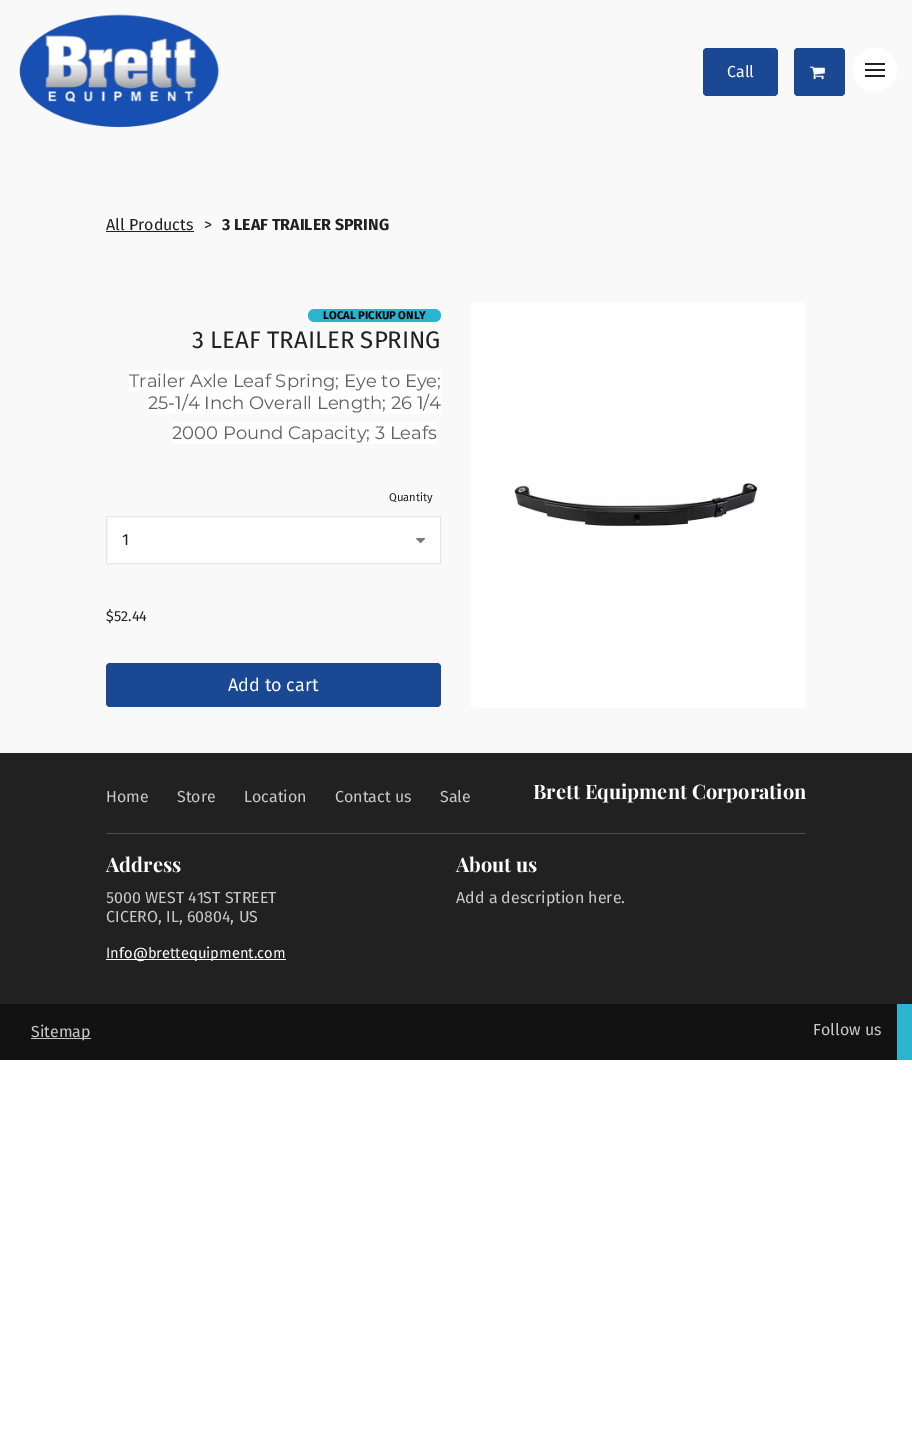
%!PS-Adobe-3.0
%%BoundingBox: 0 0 912 1432
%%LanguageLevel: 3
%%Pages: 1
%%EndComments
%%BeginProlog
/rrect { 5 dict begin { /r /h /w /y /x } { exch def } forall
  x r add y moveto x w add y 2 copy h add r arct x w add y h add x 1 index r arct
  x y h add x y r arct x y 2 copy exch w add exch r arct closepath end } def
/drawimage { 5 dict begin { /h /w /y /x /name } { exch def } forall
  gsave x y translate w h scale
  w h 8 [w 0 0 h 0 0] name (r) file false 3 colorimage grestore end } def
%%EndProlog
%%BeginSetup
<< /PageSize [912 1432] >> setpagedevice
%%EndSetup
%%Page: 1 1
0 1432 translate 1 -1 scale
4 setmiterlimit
1 setgray
0 0 912 1432 rectfill
0.976 setgray
0 0 912 753 rectfill
(images/1.raw) 19 14 201 114 drawimage
0.102 0.282 0.576 setrgbcolor
703 48 75 48 4 rrect fill
794 48 51 48 4 rrect fill
(images/2.raw) 810 66 15 14 drawimage
1 setgray
newpath 875 70 22 0 360 arc closepath fill
0.129 setgray
865 63 20 2 rectfill
865 69 20 2 rectfill
865 75 20 2 rectfill
106 231 88 1 rectfill
0.161 0.706 0.812 setrgbcolor
308 309 133 13 6.5 rrect fill
1 setgray
129 370 312 22 rectfill
148 392 293 22 rectfill
172 422 265 22 rectfill
newpath 106.5 516.5 moveto 440.5 516.5 lineto 440.5 563.5 lineto 106.5 563.5 lineto closepath gsave fill grestore
0.902 setgray
stroke
(images/3.raw) 416 538 10 6 drawimage
0.102 0.282 0.576 setrgbcolor
106 663 335 44 4 rrect fill
1 setgray
471 302 335 406 4 rrect fill
(images/4.raw) 514 483 244 44 drawimage
0.129 setgray
0 753 912 251 rectfill
0.302 setgray
106 833 700 1 rectfill
1 setgray
106 959 180 1 rectfill
0.071 setgray
0 1004 897 56 rectfill
0.769 setgray
31 1038 60 1 rectfill
0.161 0.706 0.812 setrgbcolor
897 1004 15 56 rectfill
/FiraSans-Regular [16 0 0 -16 0 0] selectfont
1 setgray
727 77 moveto (Call) show
0.129 setgray
106 230 moveto (All Products) show
204 230 moveto (>) show
/FiraSans-Bold [16 0 0 -16 0 0] selectfont
222 230 moveto (3 LEAF TRAILER SPRING) show
/FiraSans-Bold [11.25 0 0 -11.25 0 0] selectfont
0 setgray
323 319 moveto (LOCAL PICKUP ONLY) show
/FiraSans-Regular [24 0 0 -24 0 0] selectfont
0.129 setgray
192 348 moveto (3 LEAF TRAILER SPRING) show
/Montserrat-Regular [18 0 0 -18 0 0] selectfont
0.38 setgray
129 387 moveto (Trailer Axle Leaf Spring; Eye to Eye;) show
148 409 moveto (25-1/4 Inch Overall Length; 26 1/4) show
172 439 moveto (2000 Pound Capacity; 3 Leafs) show
/FiraSans-Regular [11.25 0 0 -11.25 0 0] selectfont
0.129 setgray
389 501 moveto (Quantity) show
/FiraSans-Regular [16 0 0 -16 0 0] selectfont
122 545 moveto (1) show
/FiraSans-Regular [14.5 0 0 -14.5 0 0] selectfont
106 621 moveto ($52.44) show
/FiraSans-Regular [18 0 0 -18 0 0] selectfont
1 setgray
228 691 moveto (Add to cart) show
/FiraSans-Regular [16 0 0 -16 0 0] selectfont
0.784 setgray
106 802 moveto (Home) show
177 802 moveto (Store) show
244 802 moveto (Location) show
335 802 moveto (Contact us) show
440 802 moveto (Sale) show
/PlayfairDisplay-Bold [20 0 0 -20 0 0] selectfont
1 setgray
533 799 moveto (Brett Equipment Corporation) show
106 872 moveto (Address) show
/FiraSans-Regular [16 0 0 -16 0 0] selectfont
0.784 setgray
106 903 moveto (5000 WEST 41ST STREET) show
106 922 moveto (CICERO, IL, 60804, US) show
/FiraSans-Regular [14.75 0 0 -14.75 0 0] selectfont
1 setgray
106 958 moveto (Info@brettequipment.com) show
/PlayfairDisplay-Bold [20 0 0 -20 0 0] selectfont
456 872 moveto (About us) show
/FiraSans-Regular [16 0 0 -16 0 0] selectfont
0.784 setgray
456 903 moveto (Add a description here.) show
31 1037 moveto (Sitemap) show
813 1035 moveto (Follow us) show
showpage
%%EOF
